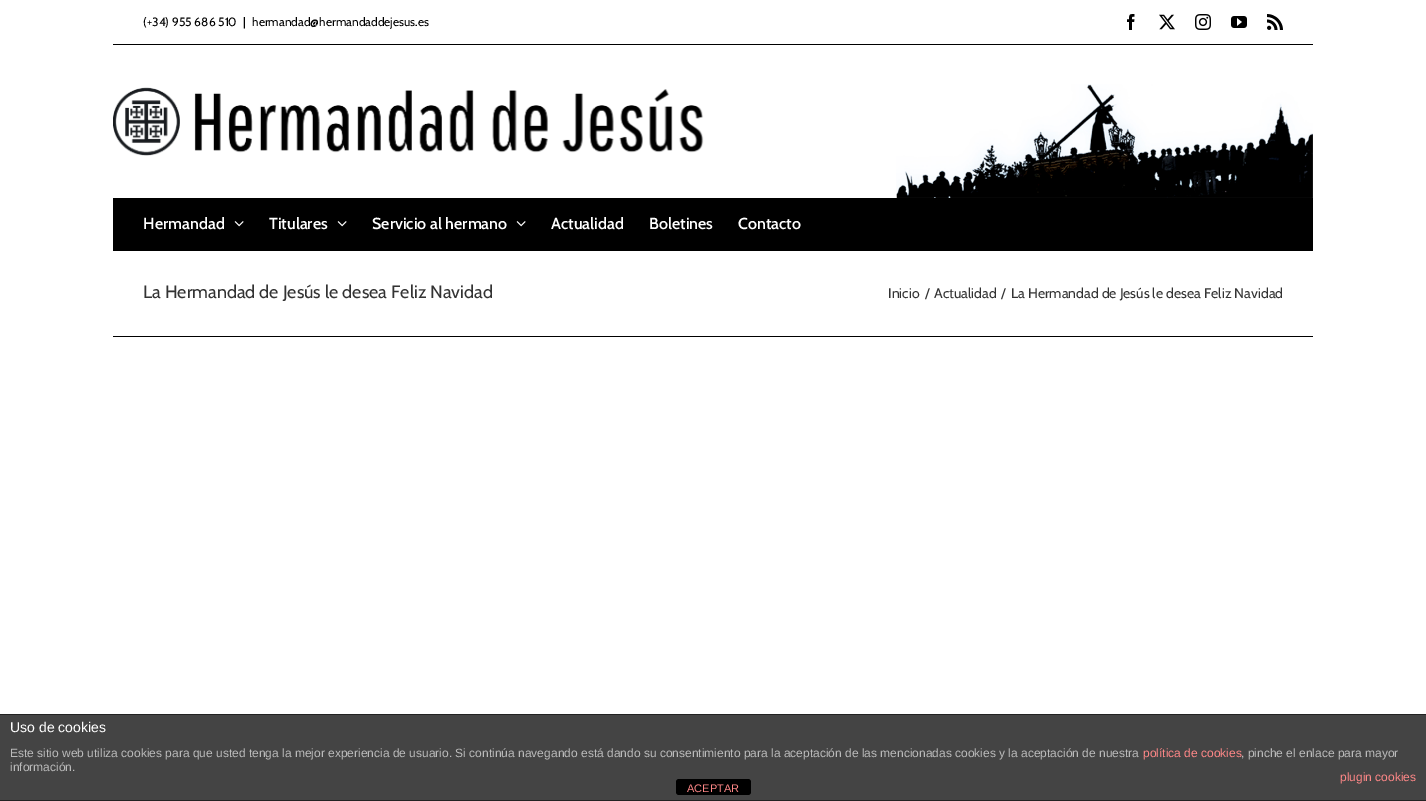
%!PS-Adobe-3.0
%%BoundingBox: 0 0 1426 801
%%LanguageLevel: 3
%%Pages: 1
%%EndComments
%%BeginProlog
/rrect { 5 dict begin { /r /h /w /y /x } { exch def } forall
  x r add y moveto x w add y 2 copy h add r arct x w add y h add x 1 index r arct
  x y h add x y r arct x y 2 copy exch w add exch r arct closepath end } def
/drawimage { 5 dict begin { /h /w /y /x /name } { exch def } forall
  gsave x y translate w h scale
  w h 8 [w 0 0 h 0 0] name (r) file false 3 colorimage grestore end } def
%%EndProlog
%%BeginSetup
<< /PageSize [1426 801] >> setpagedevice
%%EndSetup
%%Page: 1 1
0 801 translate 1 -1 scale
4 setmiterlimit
1 setgray
0 0 1426 801 rectfill
0 setgray
113 44 1200 1 rectfill
(images/1.raw) 1127 14 8 16 drawimage
(images/2.raw) 1159 14 16 16 drawimage
(images/3.raw) 1195 14 16 16 drawimage
(images/4.raw) 1231 16 16 12 drawimage
(images/5.raw) 1267 14 16 16 drawimage
(images/6.raw) 896 84 417 114 drawimage
(images/7.raw) 113 87 591 69 drawimage
113 198 1200 53 rectfill
(images/8.raw) 234 221 10 6 drawimage
(images/8.raw) 337 221 10 6 drawimage
(images/8.raw) 516 221 10 6 drawimage
113 336 1200 1 rectfill
0.267 setgray
0 715 1426 85 rectfill
0.133 setgray
0 714 1426 1 rectfill
0 800 1426 1 rectfill
0 setgray
676 779 75 16 3 rrect fill
/Cabin-Regular [12 0 0 -12 0 0] selectfont
143 26 moveto (\(+34\) 955 686 510) show
243 26 moveto (|) show
252 26 moveto (hermandad@hermandaddejesus.es) show
/Cabin-SemiBold [16 0 0 -16 0 0] selectfont
1 setgray
143 229 moveto (Hermandad) show
269 229 moveto (Titulares) show
372 229 moveto (Servicio al hermano) show
551 229 moveto (Actualidad) show
649 229 moveto (Boletines) show
738 229 moveto (Contacto) show
/Cabin-Regular [18 0 0 -18 0 0] selectfont
0.2 setgray
143 298 moveto (La Hermandad de Jesús le desea Feliz Navidad) show
/Cabin-Regular [14 0 0 -14 0 0] selectfont
888 298 moveto (Inicio) show
925 298 moveto (/) show
934 298 moveto (Actualidad) show
1001 298 moveto (/) show
1011 298 moveto (La Hermandad de Jesús le desea Feliz Navidad) show
/LiberationSans-Regular [14 0 0 -14 0 0] selectfont
1 setgray
10 732 moveto (Uso de cookies) show
/LiberationSans-Regular [12 0 0 -12 0 0] selectfont
0.733 setgray
10 757 moveto (Este sitio web utiliza cookies para que usted tenga la mejor experiencia de usuario. Si continúa navegando está dando su consentimiento para la aceptación de las mencionadas cookies y la aceptación de nuestra) show
1 0.533 0.533 setrgbcolor
1143 757 moveto (política de cookies) show
0.733 setgray
1241 757 moveto (, pinche el enlace para mayor) show
10 771 moveto (información.) show
1 0.533 0.533 setrgbcolor
1340 781 moveto (plugin cookies) show
/LiberationSans-Regular [11 0 0 -11 0 0] selectfont
687 792 moveto (ACEPTAR) show
showpage
%%EOF
